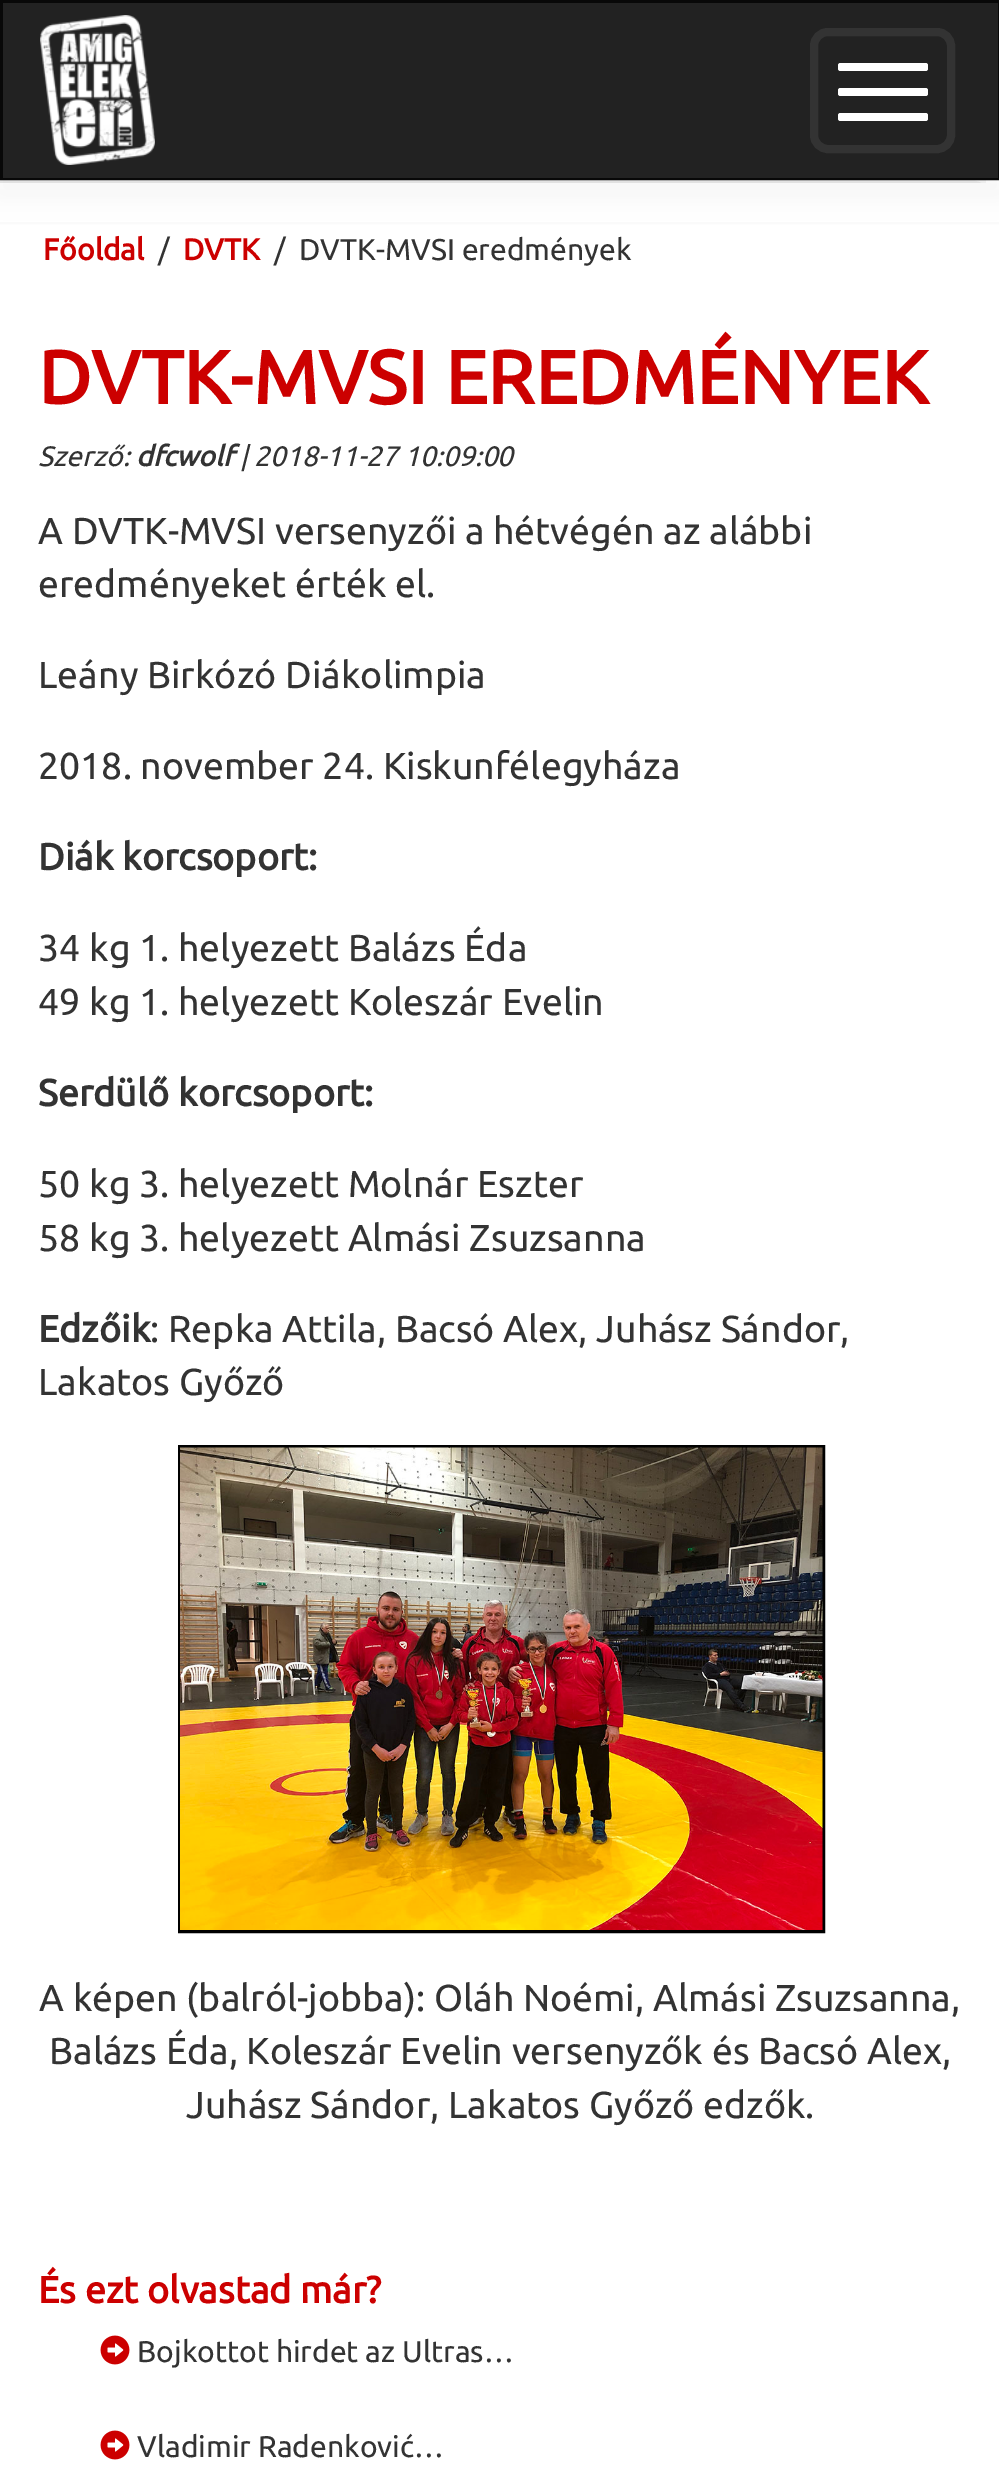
%!PS-Adobe-3.0
%%BoundingBox: 0 0 999 2474
%%LanguageLevel: 3
%%Pages: 1
%%EndComments
%%BeginProlog
/setalpha { dup .setfillconstantalpha .setstrokeconstantalpha } def
/rrect { 5 dict begin { /r /h /w /y /x } { exch def } forall
  x r add y moveto x w add y 2 copy h add r arct x w add y h add x 1 index r arct
  x y h add x y r arct x y 2 copy exch w add exch r arct closepath end } def
/softshadow { 12 dict begin { /a /b /q /h /w /y /x } { exch def } forall gsave /was 0 def
  9 -2 -9 { dup b mul 4 div /e exch def 1 sub .425 mul 2.718 exch exp 1 add a .99 .min exch div /now exch def
    1 1 now sub 1 was sub div sub setalpha /was now def
    w h .min e 2 mul add 0 gt { x e sub y e sub w e 2 mul add h e 2 mul add
      q e add b .6 mul add w h .min 2 div e add .min 0 .max rrect fill } if } for grestore end } def
/drawimage { 5 dict begin { /h /w /y /x /name } { exch def } forall
  gsave x y translate w h scale
  w h 8 [w 0 0 h 0 0] name (r) file false 3 colorimage grestore end } def
%%EndProlog
%%BeginSetup
<< /PageSize [999 2474] /PageUsesTransparency true >> setpagedevice
%%EndSetup
%%Page: 1 1
0 .pushpdf14devicefilter
0 2474 translate 1 -1 scale
4 setmiterlimit
1 setgray
0 0 999 2474 rectfill
0.196 setgray
0 13 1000 180 0 12.5 0.75 softshadow
gsave
newpath 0 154 moveto 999 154 lineto 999 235 lineto 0 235 lineto closepath 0 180 moveto 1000 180 lineto 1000 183 lineto 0 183 lineto closepath eoclip newpath
0 193 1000 3 0 12.5 0.75 softshadow
grestore
0.95 setalpha
1 setgray
0 180 999 3 rectfill
gsave
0 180 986 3 rectclip
1 setalpha
0.196 setgray
-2 193 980 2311 0 10 0.75 softshadow
grestore
1 setalpha
0.031 setgray
3 setlinewidth
1.5 1.5 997 177 rectstroke
0.133 setgray
3 3 995 175 rectfill
(images/1.raw) 40 15 115 150 drawimage
0.2 setgray
8 setlinewidth
814 32 137 117 14 rrect stroke
1 setgray
838 63 90 8 2.5 rrect fill
838 88 90 8 2.5 rrect fill
838 113 90 8 2.5 rrect fill
0.95 setalpha
0 183 999 39 rectfill
1 setalpha
0 setgray
3 setlinewidth
179.5 1446.5 644 485 rectstroke
(images/2.raw) 180 1447 643 483 drawimage
(images/3.raw) 100 2335 30 30 drawimage
(images/3.raw) 100 2430 30 30 drawimage
/Ubuntu-Bold [30 0 0 -30 0 0] selectfont
0.8 0 0 setrgbcolor
43 260 moveto (Főoldal) show
/Ubuntu-Regular [30 0 0 -30 0 0] selectfont
0.2 setgray
158 260 moveto (/) show
/Ubuntu-Bold [30 0 0 -30 0 0] selectfont
0.8 0 0 setrgbcolor
183 260 moveto (DVTK) show
/Ubuntu-Regular [30 0 0 -30 0 0] selectfont
0.2 setgray
274 260 moveto (/) show
299 260 moveto (DVTK-MVSI eredmények) show
/Ubuntu-Bold [75 0 0 -75 0 0] selectfont
0.8 0 0 setrgbcolor
38 404 moveto (DVTK-MVSI EREDMÉNYEK) show
/Ubuntu-Italic [28.1 0 0 -28.1 0 0] selectfont
0.2 setgray
38 466 moveto (Szerző:) show
/Ubuntu-BoldItalic [28.1 0 0 -28.1 0 0] selectfont
136 466 moveto (dfcwolf) show
/Ubuntu-Italic [28.1 0 0 -28.1 0 0] selectfont
240 466 moveto (| 2018-11-27 10:09:00) show
/Ubuntu-Regular [37.5 0 0 -37.5 0 0] selectfont
38 544 moveto (A DVTK-MVSI versenyzői a hétvégén az alábbi) show
38 597 moveto (eredményeket érték el.) show
38 688 moveto (Leány Birkózó Diákolimpia) show
38 779 moveto (2018. november 24. Kiskunfélegyháza) show
/Ubuntu-Bold [37.5 0 0 -37.5 0 0] selectfont
38 870 moveto (Diák korcsoport:) show
/Ubuntu-Regular [37.5 0 0 -37.5 0 0] selectfont
38 961 moveto (34 kg 1. helyezett Balázs Éda) show
38 1015 moveto (49 kg 1. helyezett Koleszár Evelin) show
/Ubuntu-Bold [37.5 0 0 -37.5 0 0] selectfont
38 1106 moveto (Serdülő korcsoport:) show
/Ubuntu-Regular [37.5 0 0 -37.5 0 0] selectfont
38 1197 moveto (50 kg 3. helyezett Molnár Eszter) show
38 1251 moveto (58 kg 3. helyezett Almási Zsuzsanna) show
/Ubuntu-Bold [37.5 0 0 -37.5 0 0] selectfont
38 1342 moveto (Edzőik) show
/Ubuntu-Regular [37.5 0 0 -37.5 0 0] selectfont
150 1342 moveto (: Repka Attila, Bacsó Alex, Juhász Sándor,) show
38 1395 moveto (Lakatos Győző) show
39 2011 moveto (A képen \(balról-jobba\): Oláh Noémi, Almási Zsuzsanna,) show
49 2064 moveto (Balázs Éda, Koleszár Evelin versenyzők és Bacsó Alex,) show
186 2118 moveto (Juhász Sándor, Lakatos Győző edzők.) show
/Ubuntu-Bold [37.5 0 0 -37.5 0 0] selectfont
0.8 0 0 setrgbcolor
38 2303 moveto (És ezt olvastad már?) show
/Ubuntu-Regular [30 0 0 -30 0 0] selectfont
0.2 setgray
137 2362 moveto (Bojkottot hirdet az Ultras…) show
137 2457 moveto (Vladimir Radenković…) show
.poppdf14devicefilter showpage
%%EOF
